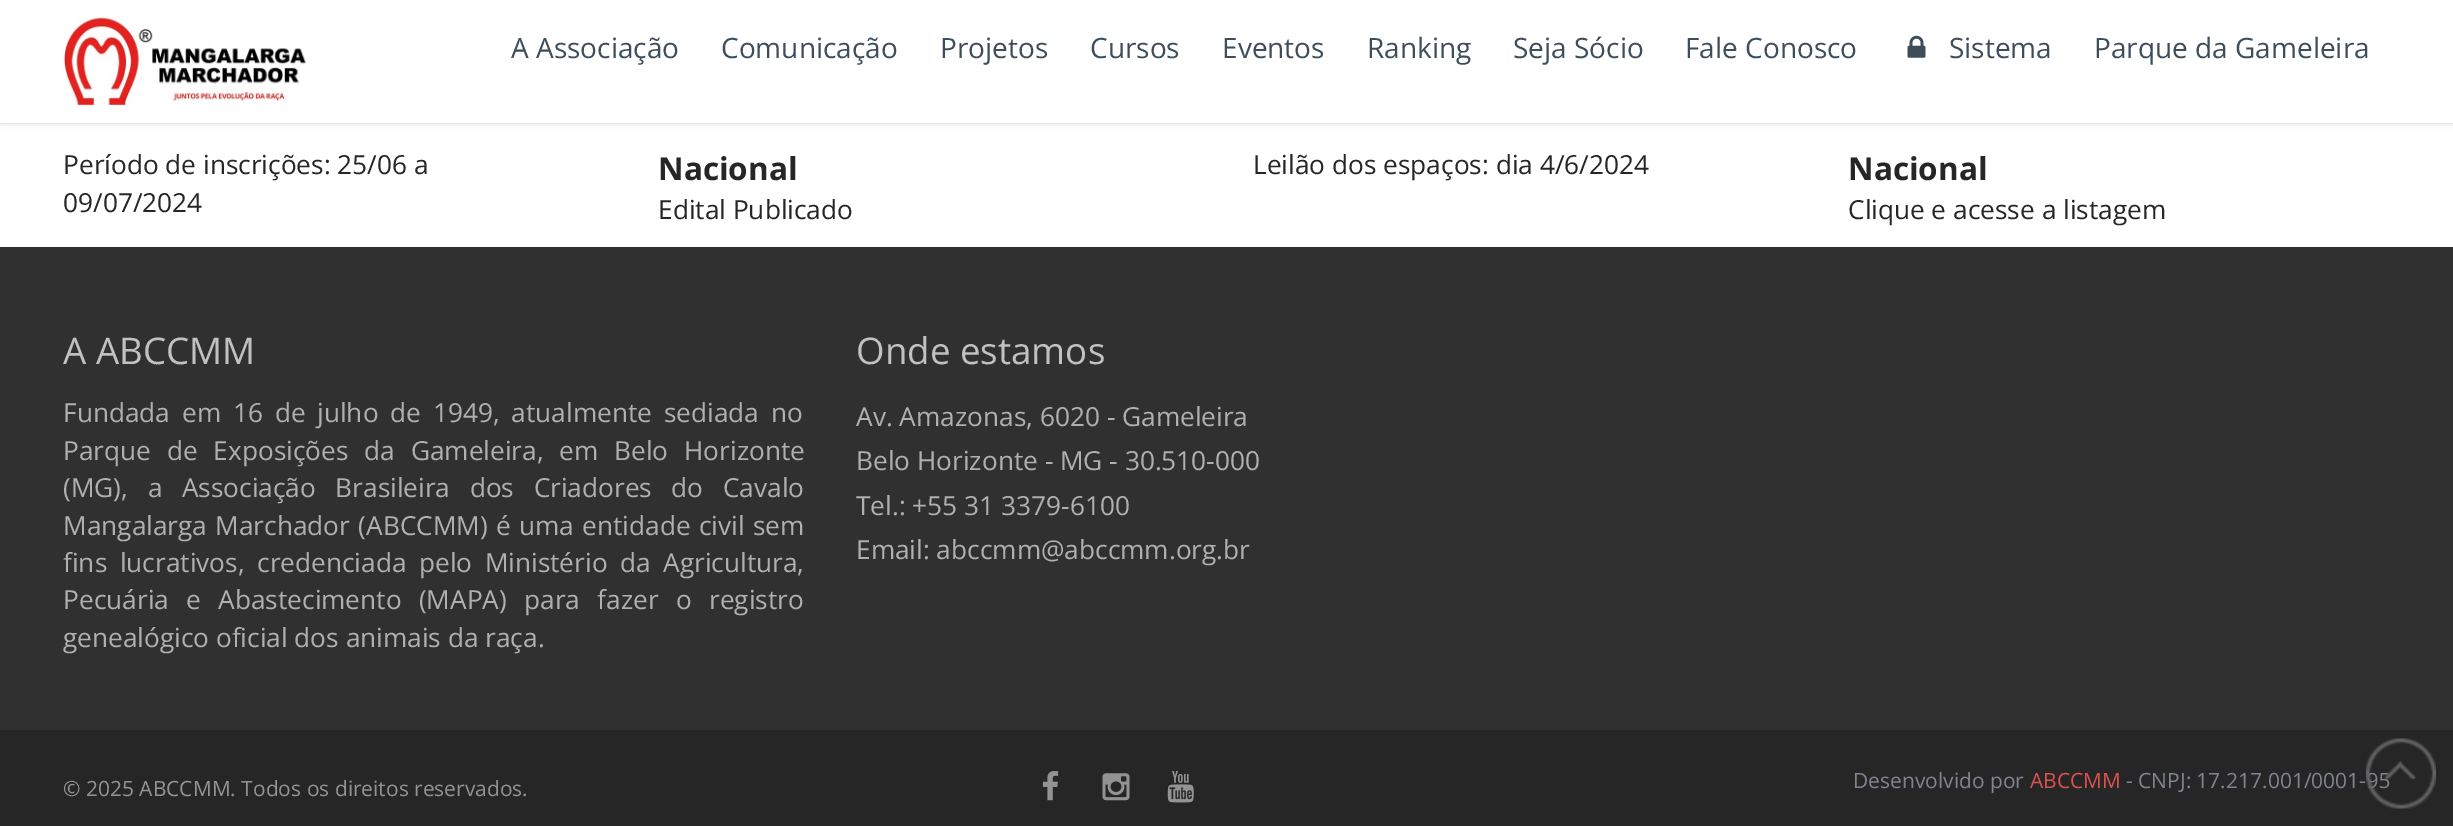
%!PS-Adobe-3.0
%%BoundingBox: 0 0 2453 826
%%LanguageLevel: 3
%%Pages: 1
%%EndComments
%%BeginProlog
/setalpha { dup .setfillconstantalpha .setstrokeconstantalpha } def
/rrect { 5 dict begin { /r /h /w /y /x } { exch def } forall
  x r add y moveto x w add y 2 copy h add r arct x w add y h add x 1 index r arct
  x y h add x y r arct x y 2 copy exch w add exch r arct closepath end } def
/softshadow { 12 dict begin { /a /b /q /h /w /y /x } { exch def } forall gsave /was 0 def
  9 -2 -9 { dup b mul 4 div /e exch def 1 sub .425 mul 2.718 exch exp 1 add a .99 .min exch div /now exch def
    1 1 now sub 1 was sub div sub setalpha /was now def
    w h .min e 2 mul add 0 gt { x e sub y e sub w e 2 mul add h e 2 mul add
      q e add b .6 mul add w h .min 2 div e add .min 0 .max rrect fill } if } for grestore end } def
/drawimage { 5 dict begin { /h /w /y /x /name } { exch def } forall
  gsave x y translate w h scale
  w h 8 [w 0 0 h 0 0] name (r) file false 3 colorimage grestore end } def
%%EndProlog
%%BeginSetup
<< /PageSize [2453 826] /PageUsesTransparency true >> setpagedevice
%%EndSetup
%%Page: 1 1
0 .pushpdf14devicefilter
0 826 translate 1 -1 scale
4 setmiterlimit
1 setgray
0 0 2453 826 rectfill
0.867 setgray
0 2 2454 122 0 2.5 1 softshadow
1 setgray
0 0 2453 123 rectfill
(images/1.raw) 63 17 243 88 drawimage
(images/2.raw) 1907 35 19 23 drawimage
0.192 0.188 0.188 setrgbcolor
0 247 2453 483 rectfill
0.153 0.149 0.149 setrgbcolor
0 730 2453 96 rectfill
(images/3.raw) 1042 771 17 30 drawimage
(images/4.raw) 1102 773 28 28 drawimage
(images/5.raw) 1167 771 27 32 drawimage
/OpenSans-Regular [28 0 0 -28 0 0] selectfont
0.243 0.302 0.361 setrgbcolor
511 58 moveto (A Associação) show
721 58 moveto (Comunicação) show
940 58 moveto (Projetos) show
1090 58 moveto (Cursos) show
1222 58 moveto (Eventos) show
1367 58 moveto (Ranking) show
1513 58 moveto (Seja Sócio) show
1685 58 moveto (Fale Conosco) show
1949 58 moveto (Sistema) show
2094 58 moveto (Parque da Gameleira) show
/OpenSans-Regular [26.25 0 0 -26.25 0 0] selectfont
0.149 setgray
63 174 moveto (Período de inscrições: 25/06 a) show
63 212 moveto (09/07/2024) show
/OpenSans-Bold [31.5 0 0 -31.5 0 0] selectfont
658 180 moveto (Nacional) show
/OpenSans-Regular [26.25 0 0 -26.25 0 0] selectfont
658 219 moveto (Edital Publicado) show
1253 174 moveto (Leilão dos espaços: dia 4/6/2024) show
/OpenSans-Bold [31.5 0 0 -31.5 0 0] selectfont
1848 180 moveto (Nacional) show
/OpenSans-Regular [26.25 0 0 -26.25 0 0] selectfont
1848 219 moveto (Clique e acesse a listagem) show
/OpenSans-Regular [36.75 0 0 -36.75 0 0] selectfont
0.761 0.757 0.757 setrgbcolor
63 364 moveto (A ABCCMM) show
/OpenSans-Regular [26.25 0 0 -26.25 0 0] selectfont
0.69 setgray
63 422 moveto 5 0 32 (Fundada em 16 de julho de 1949, atualmente sediada no) widthshow
63 460 moveto 9 0 32 (Parque de Exposições da Gameleira, em Belo Horizonte) widthshow
63 497 moveto 12.75 0 32 (\(MG\), a Associação Brasileira dos Criadores do Cavalo) widthshow
63 535 moveto 1.5 0 32 (Mangalarga Marchador \(ABCCMM\) é uma entidade civil sem) widthshow
63 572 moveto 5.75 0 32 (fins lucrativos, credenciada pelo Ministério da Agricultura,) widthshow
63 609 moveto 10.5 0 32 (Pecuária e Abastecimento \(MAPA\) para fazer o registro) widthshow
63 647 moveto (genealógico oficial dos animais da raça.) show
/OpenSans-Regular [36.75 0 0 -36.75 0 0] selectfont
0.761 0.757 0.757 setrgbcolor
856 364 moveto (Onde estamos) show
/OpenSans-Regular [26.25 0 0 -26.25 0 0] selectfont
0.69 setgray
856 426 moveto (Av. Amazonas, 6020 - Gameleira) show
856 470 moveto (Belo Horizonte - MG - 30.510-000) show
856 515 moveto (Tel.: +55 31 3379-6100) show
856 559 moveto (Email: abccmm@abccmm.org.br) show
/OpenSans-Regular [21 0 0 -21 0 0] selectfont
0.576 setgray
63 796 moveto (© 2025 ABCCMM. Todos os direitos reservados.) show
0.506 0.518 0.561 setrgbcolor
1853 788 moveto (Desenvolvido por) show
0.851 0.322 0.306 setrgbcolor
2030 788 moveto (ABCCMM) show
0.506 0.518 0.561 setrgbcolor
2126 788 moveto (- CNPJ: 17.217.001/0001-95) show
(images/6.raw) 2366 738 70 71 drawimage
.poppdf14devicefilter showpage
%%EOF
